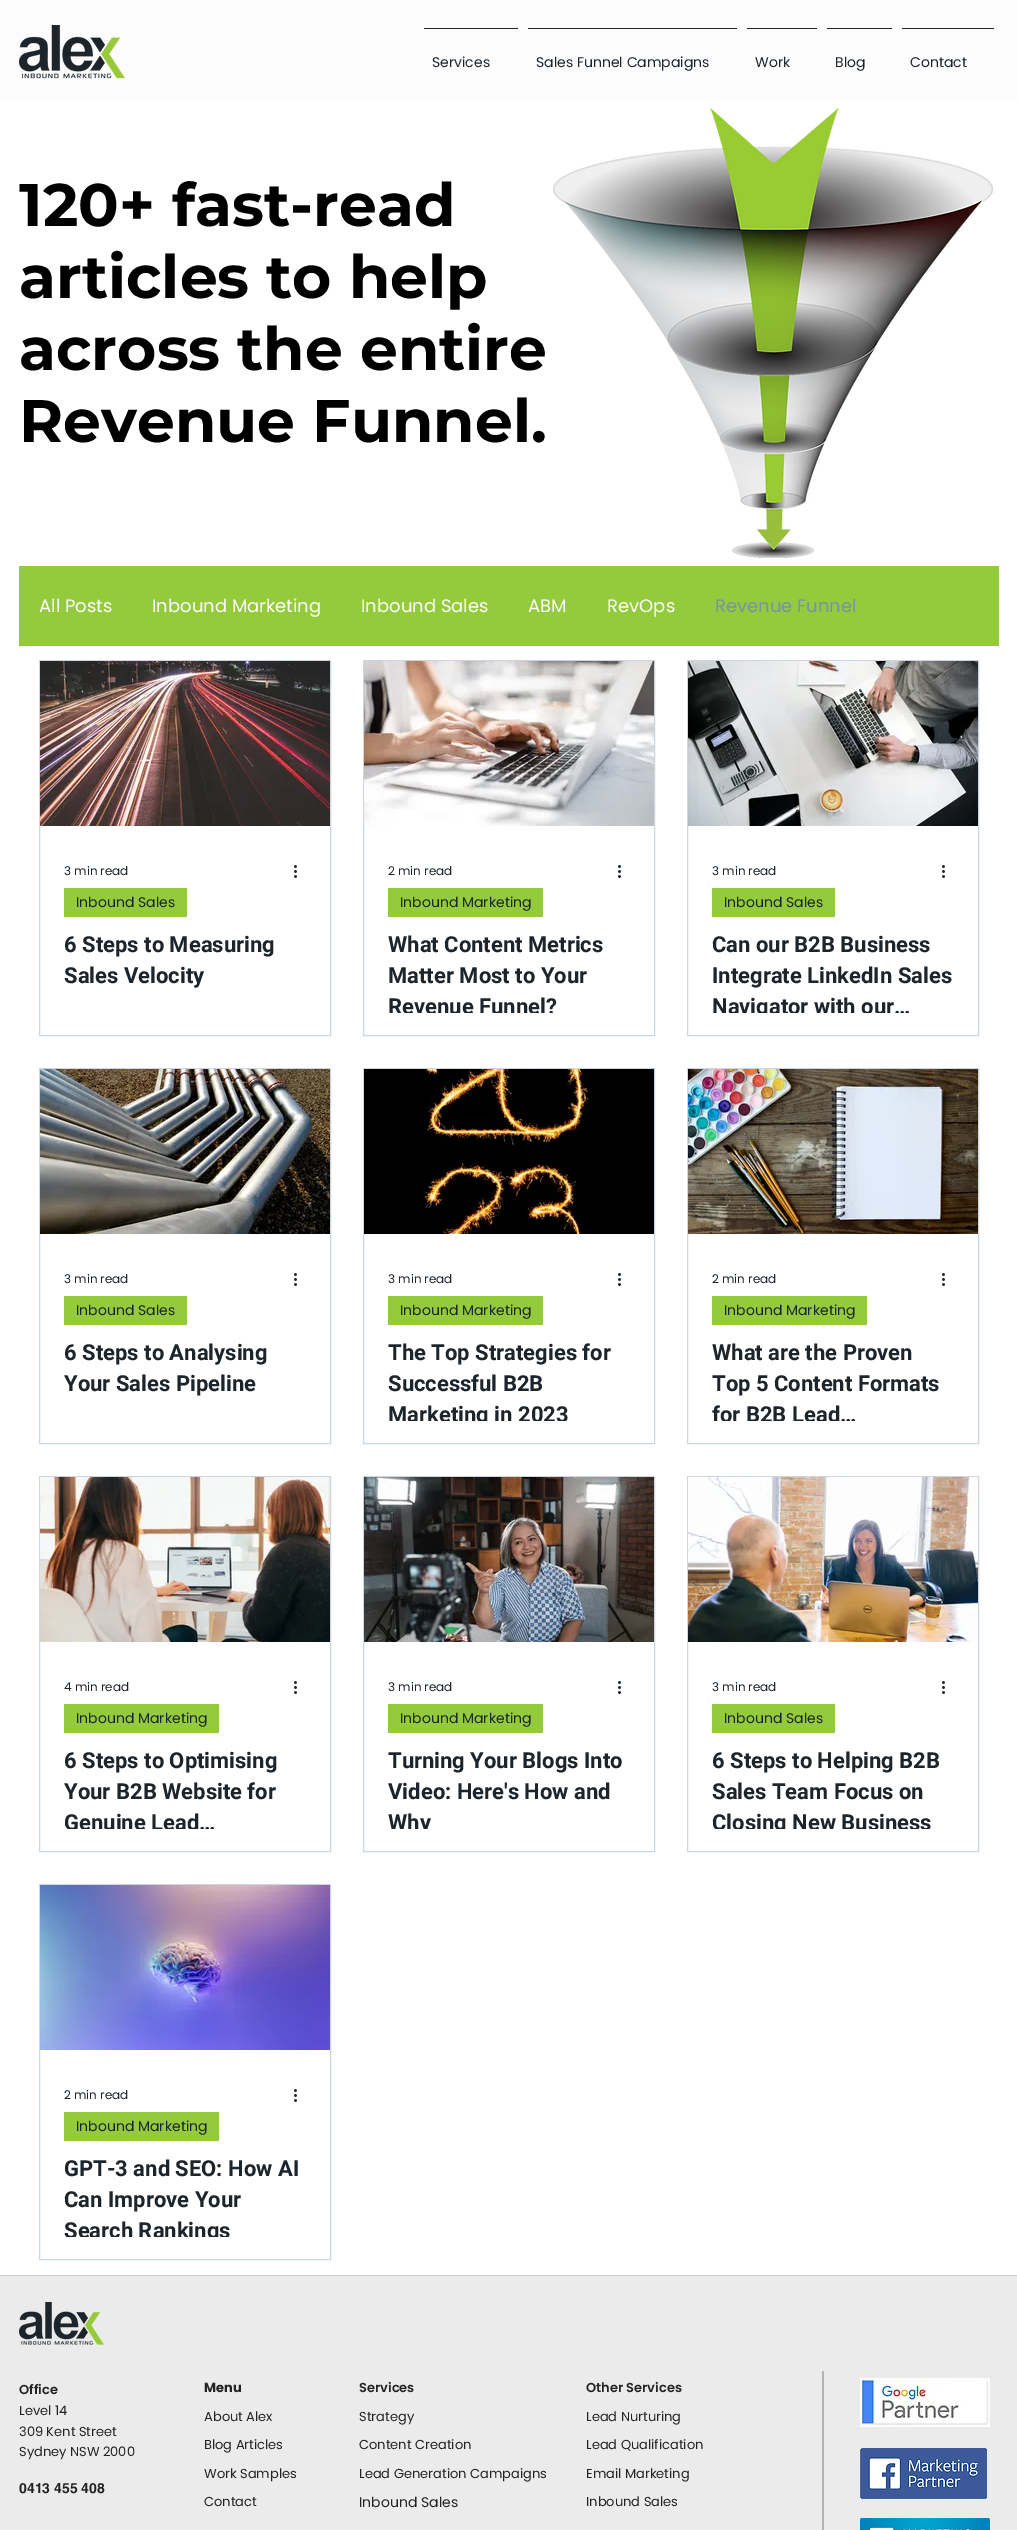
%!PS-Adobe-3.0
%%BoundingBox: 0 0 1017 2530
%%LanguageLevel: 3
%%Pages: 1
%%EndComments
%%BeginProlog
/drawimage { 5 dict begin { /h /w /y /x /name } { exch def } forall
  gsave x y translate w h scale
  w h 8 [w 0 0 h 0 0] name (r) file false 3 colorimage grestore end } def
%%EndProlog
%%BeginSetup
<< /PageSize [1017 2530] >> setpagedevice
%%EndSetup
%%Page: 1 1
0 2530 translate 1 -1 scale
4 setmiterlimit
1 setgray
0 0 1017 2530 rectfill
0.988 setgray
0 0 1017 100 rectfill
(images/1.raw) 19 25 106 54 drawimage
0.11 0.141 0.173 setrgbcolor
424 28 94 1 rectfill
528 28 209 1 rectfill
747 28 70 1 rectfill
827 28 65 1 rectfill
902 28 92 1 rectfill
(images/2.raw) 553 108 440 450 drawimage
0.58 0.796 0.235 setrgbcolor
19 566 980 80 rectfill
0.804 0.839 0.875 setrgbcolor
39.5 660.5 291 375 rectstroke
(images/3.raw) 40 661 290 165 drawimage
(images/4.raw) 294 865 3 13 drawimage
0.58 0.796 0.235 setrgbcolor
64 888 123 29 rectfill
0.804 0.839 0.875 setrgbcolor
363.5 660.5 291 375 rectstroke
(images/5.raw) 364 661 290 165 drawimage
(images/4.raw) 618 865 3 13 drawimage
0.58 0.796 0.235 setrgbcolor
388 888 155 29 rectfill
0.804 0.839 0.875 setrgbcolor
687.5 660.5 291 375 rectstroke
(images/6.raw) 688 661 290 165 drawimage
(images/4.raw) 942 865 3 13 drawimage
0.58 0.796 0.235 setrgbcolor
712 888 123 29 rectfill
0.804 0.839 0.875 setrgbcolor
39.5 1068.5 291 375 rectstroke
(images/7.raw) 40 1069 290 165 drawimage
(images/4.raw) 294 1273 3 13 drawimage
0.58 0.796 0.235 setrgbcolor
64 1296 123 29 rectfill
0.804 0.839 0.875 setrgbcolor
363.5 1068.5 291 375 rectstroke
(images/8.raw) 364 1069 290 165 drawimage
(images/4.raw) 618 1273 3 13 drawimage
0.58 0.796 0.235 setrgbcolor
388 1296 155 29 rectfill
0.804 0.839 0.875 setrgbcolor
687.5 1068.5 291 375 rectstroke
(images/9.raw) 688 1069 290 165 drawimage
(images/4.raw) 942 1273 3 13 drawimage
0.58 0.796 0.235 setrgbcolor
712 1296 155 29 rectfill
0.804 0.839 0.875 setrgbcolor
39.5 1476.5 291 375 rectstroke
(images/10.raw) 40 1477 290 165 drawimage
(images/4.raw) 294 1681 3 13 drawimage
0.58 0.796 0.235 setrgbcolor
64 1704 155 29 rectfill
0.804 0.839 0.875 setrgbcolor
363.5 1476.5 291 375 rectstroke
(images/11.raw) 364 1477 290 165 drawimage
(images/4.raw) 618 1681 3 13 drawimage
0.58 0.796 0.235 setrgbcolor
388 1704 155 29 rectfill
0.804 0.839 0.875 setrgbcolor
687.5 1476.5 291 375 rectstroke
(images/12.raw) 688 1477 290 165 drawimage
(images/4.raw) 942 1681 3 13 drawimage
0.58 0.796 0.235 setrgbcolor
712 1704 123 29 rectfill
0.804 0.839 0.875 setrgbcolor
39.5 1884.5 291 375 rectstroke
(images/13.raw) 40 1885 290 165 drawimage
(images/4.raw) 294 2089 3 13 drawimage
0.58 0.796 0.235 setrgbcolor
64 2112 155 29 rectfill
0.925 0.922 0.922 setrgbcolor
0 2276 1017 254 rectfill
0.804 0.804 0.808 setrgbcolor
0 2275 1017 1 rectfill
(images/14.raw) 19 2302 85 43 drawimage
0.706 setgray
822 2371 2 159 rectfill
(images/15.raw) 860 2378 130 49 drawimage
(images/16.raw) 860 2448 127 51 drawimage
(images/17.raw) 860 2518 130 12 drawimage
/Poppins-Regular [14 0 0 -14 0 0] selectfont
0.11 0.141 0.173 setrgbcolor
432 67 moveto (Services) show
536 67 moveto (Sales Funnel Campaigns) show
755 67 moveto (Work) show
835 67 moveto (Blog) show
910 67 moveto (Contact) show
/Montserrat-Bold [60 0 0 -60 0 0] selectfont
0 setgray
19 226 moveto (120+ fast-read) show
19 298 moveto (articles to help) show
19 370 moveto (across the entire) show
19 442 moveto (Revenue Funnel.) show
/Poppins-Regular [18 0 0 -18 0 0] selectfont
1 setgray
39 612 moveto (All Posts) show
152 612 moveto (Inbound Marketing) show
361 612 moveto (Inbound Sales) show
528 612 moveto (ABM) show
607 612 moveto (RevOps) show
0.475 0.569 0.667 setrgbcolor
715 612 moveto (Revenue Funnel) show
/Poppins-Regular [12 0 0 -12 0 0] selectfont
0.11 0.141 0.173 setrgbcolor
64 875 moveto (3 min read) show
/Poppins-Regular [14 0 0 -14 0 0] selectfont
76 907 moveto (Inbound Sales) show
/Roboto-Bold [22 0 0 -22 0 0] selectfont
64 952 moveto (6 Steps to Measuring) show
64 983 moveto (Sales Velocity) show
/Poppins-Regular [12 0 0 -12 0 0] selectfont
388 875 moveto (2 min read) show
/Poppins-Regular [14 0 0 -14 0 0] selectfont
400 907 moveto (Inbound Marketing) show
/Roboto-Bold [22 0 0 -22 0 0] selectfont
388 952 moveto (What Content Metrics) show
388 983 moveto (Matter Most to Your) show
gsave
388 930 242 83 rectclip
388 1014 moveto (Revenue Funnel?) show
grestore
/Poppins-Regular [12 0 0 -12 0 0] selectfont
712 875 moveto (3 min read) show
/Poppins-Regular [14 0 0 -14 0 0] selectfont
724 907 moveto (Inbound Sales) show
/Roboto-Bold [22 0 0 -22 0 0] selectfont
712 952 moveto (Can our B2B Business) show
712 983 moveto (Integrate LinkedIn Sales) show
gsave
712 930 242 83 rectclip
712 1014 moveto (Navigator with our…) show
grestore
/Poppins-Regular [12 0 0 -12 0 0] selectfont
64 1283 moveto (3 min read) show
/Poppins-Regular [14 0 0 -14 0 0] selectfont
76 1315 moveto (Inbound Sales) show
/Roboto-Bold [22 0 0 -22 0 0] selectfont
64 1360 moveto (6 Steps to Analysing) show
64 1391 moveto (Your Sales Pipeline) show
/Poppins-Regular [12 0 0 -12 0 0] selectfont
388 1283 moveto (3 min read) show
/Poppins-Regular [14 0 0 -14 0 0] selectfont
400 1315 moveto (Inbound Marketing) show
/Roboto-Bold [22 0 0 -22 0 0] selectfont
388 1360 moveto (The Top Strategies for) show
388 1391 moveto (Successful B2B) show
gsave
388 1338 242 83 rectclip
388 1422 moveto (Marketing in 2023) show
grestore
/Poppins-Regular [12 0 0 -12 0 0] selectfont
712 1283 moveto (2 min read) show
/Poppins-Regular [14 0 0 -14 0 0] selectfont
724 1315 moveto (Inbound Marketing) show
/Roboto-Bold [22 0 0 -22 0 0] selectfont
712 1360 moveto (What are the Proven) show
712 1391 moveto (Top 5 Content Formats) show
gsave
712 1338 242 83 rectclip
712 1422 moveto (for B2B Lead…) show
grestore
/Poppins-Regular [12 0 0 -12 0 0] selectfont
64 1691 moveto (4 min read) show
/Poppins-Regular [14 0 0 -14 0 0] selectfont
76 1723 moveto (Inbound Marketing) show
/Roboto-Bold [22 0 0 -22 0 0] selectfont
64 1768 moveto (6 Steps to Optimising) show
64 1799 moveto (Your B2B Website for) show
gsave
64 1746 242 83 rectclip
64 1830 moveto (Genuine Lead…) show
grestore
/Poppins-Regular [12 0 0 -12 0 0] selectfont
388 1691 moveto (3 min read) show
/Poppins-Regular [14 0 0 -14 0 0] selectfont
400 1723 moveto (Inbound Marketing) show
/Roboto-Bold [22 0 0 -22 0 0] selectfont
388 1768 moveto (Turning Your Blogs Into) show
388 1799 moveto (Video: Here's How and) show
gsave
388 1746 242 83 rectclip
388 1830 moveto (Why) show
grestore
/Poppins-Regular [12 0 0 -12 0 0] selectfont
712 1691 moveto (3 min read) show
/Poppins-Regular [14 0 0 -14 0 0] selectfont
724 1723 moveto (Inbound Sales) show
/Roboto-Bold [22 0 0 -22 0 0] selectfont
712 1768 moveto (6 Steps to Helping B2B) show
712 1799 moveto (Sales Team Focus on) show
gsave
712 1746 242 83 rectclip
712 1830 moveto (Closing New Business) show
grestore
/Poppins-Regular [12 0 0 -12 0 0] selectfont
64 2099 moveto (2 min read) show
/Poppins-Regular [14 0 0 -14 0 0] selectfont
76 2131 moveto (Inbound Marketing) show
/Roboto-Bold [22 0 0 -22 0 0] selectfont
64 2176 moveto (GPT-3 and SEO: How AI) show
64 2207 moveto (Can Improve Your) show
gsave
64 2154 242 83 rectclip
64 2238 moveto (Search Rankings) show
grestore
/Poppins-SemiBold [13 0 0 -13 0 0] selectfont
0.141 0.137 0.137 setrgbcolor
19 2394 moveto (Office) show
/Poppins-Regular [13 0 0 -13 0 0] selectfont
19 2415 moveto (Level 14) show
19 2436 moveto (309 Kent Street) show
19 2456 moveto (Sydney NSW 2000) show
/Poppins-Bold [13 0 0 -13 0 0] selectfont
204 2392 moveto (Menu) show
/Poppins-Regular [13 0 0 -13 0 0] selectfont
204 2421 moveto (About Alex) show
204 2449 moveto (Blog Articles) show
204 2478 moveto (Work Samples) show
204 2506 moveto (Contact) show
/Poppins-SemiBold [13 0 0 -13 0 0] selectfont
359 2392 moveto (Services) show
/Poppins-Regular [13 0 0 -13 0 0] selectfont
359 2421 moveto (Strategy) show
359 2449 moveto (Content Creation) show
359 2478 moveto (Lead Generation Campaigns) show
/Poppins-Regular [14 0 0 -14 0 0] selectfont
359 2507 moveto (Inbound Sales) show
/Poppins-SemiBold [13 0 0 -13 0 0] selectfont
586 2392 moveto (Other Services) show
/Poppins-Regular [13 0 0 -13 0 0] selectfont
586 2421 moveto (Lead Nurturing) show
586 2449 moveto (Lead Qualification) show
586 2478 moveto (Email Marketing) show
586 2506 moveto (Inbound Sales) show
/helvetica-Bold [14 0 0 -14 0 0] selectfont
19 2493 moveto (0413 455 408) show
showpage
%%EOF
